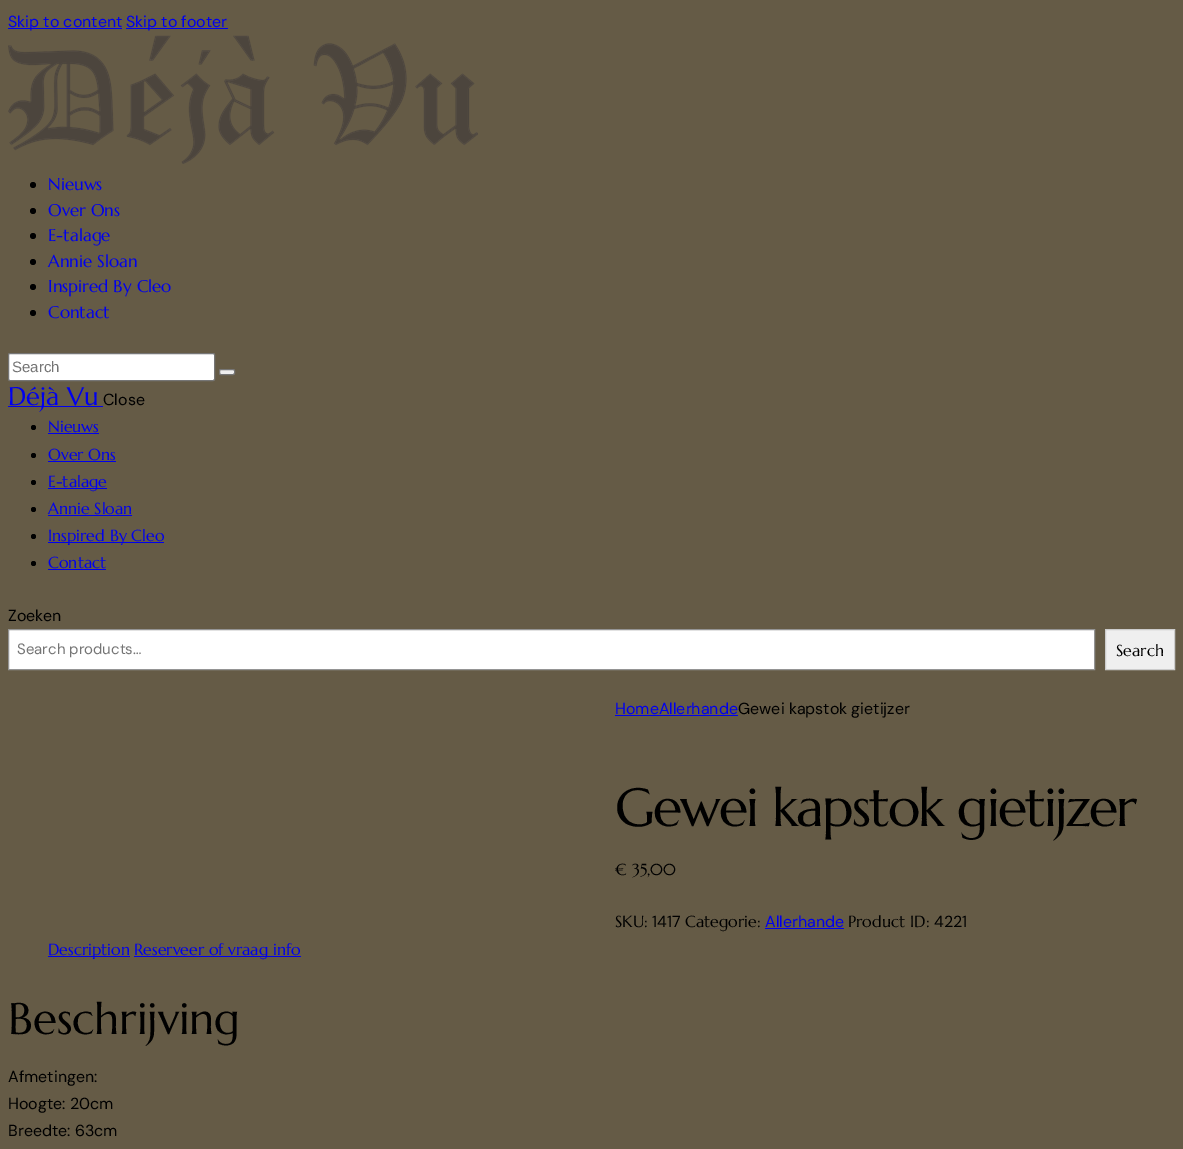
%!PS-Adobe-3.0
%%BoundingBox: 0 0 1183 1149
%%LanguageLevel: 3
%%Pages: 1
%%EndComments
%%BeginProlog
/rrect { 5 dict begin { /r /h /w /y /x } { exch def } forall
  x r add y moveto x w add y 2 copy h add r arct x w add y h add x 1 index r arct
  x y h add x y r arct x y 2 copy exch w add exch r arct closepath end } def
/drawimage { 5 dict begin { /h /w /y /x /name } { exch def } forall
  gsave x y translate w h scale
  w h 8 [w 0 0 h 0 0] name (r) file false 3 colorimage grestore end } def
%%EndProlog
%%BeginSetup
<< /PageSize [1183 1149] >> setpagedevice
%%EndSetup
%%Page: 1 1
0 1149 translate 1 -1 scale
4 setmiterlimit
0.396 0.357 0.275 setrgbcolor
0 0 1183 1149 rectfill
0 0 0.933 setrgbcolor
8 28 114 1 rectfill
126 28 102 1 rectfill
(images/1.raw) 8 35 470 129 drawimage
0 setgray
newpath 33 185 3 0 360 arc closepath fill
newpath 33 211 3 0 360 arc closepath fill
newpath 33 236 3 0 360 arc closepath fill
newpath 33 262 3 0 360 arc closepath fill
newpath 33 287 3 0 360 arc closepath fill
newpath 33 313 3 0 360 arc closepath fill
1 setgray
8.5 353.5 206 27 1.5 rrect gsave fill grestore
0.463 setgray
stroke
0.937 setgray
219.5 369.5 15 5 1.5 rrect gsave fill grestore
0.463 setgray
stroke
0 0 0.933 setrgbcolor
8 406 95 1 rectfill
0 setgray
newpath 33.5 427.5 2.5 0 360 arc closepath fill
0 0 0.933 setrgbcolor
48 433 51 1 rectfill
0 setgray
newpath 33.5 455.5 2.5 0 360 arc closepath fill
0 0 0.933 setrgbcolor
48 461 68 1 rectfill
0 setgray
newpath 33.5 482.5 2.5 0 360 arc closepath fill
0 0 0.933 setrgbcolor
48 488 59 1 rectfill
0 setgray
newpath 33.5 509.5 2.5 0 360 arc closepath fill
0 0 0.933 setrgbcolor
48 515 84 1 rectfill
0 setgray
newpath 33.5 536.5 2.5 0 360 arc closepath fill
0 0 0.933 setrgbcolor
48 542 116 1 rectfill
0 setgray
newpath 33.5 563.5 2.5 0 360 arc closepath fill
0 0 0.933 setrgbcolor
48 569 58 1 rectfill
1 setgray
newpath 8.5 629.5 moveto 1094.5 629.5 lineto 1094.5 669.5 lineto 8.5 669.5 lineto closepath gsave fill grestore
0.58 setgray
stroke
0.937 setgray
newpath 1105.5 629.5 moveto 1174.5 629.5 lineto 1174.5 669.5 lineto 1105.5 669.5 lineto closepath gsave fill grestore
0.8 setgray
stroke
0 0 0.933 setrgbcolor
615 715 123 1 rectfill
765 928 79 1 rectfill
48 956 82 1 rectfill
134 956 167 1 rectfill
/DMSans-Regular [16 0 0 -16 0 0] selectfont
8 27 moveto (Skip to content) show
126 27 moveto (Skip to footer) show
/Marcellus-Regular [17 0 0 -17 0 0] selectfont
48 190 moveto (Nieuws) show
48 216 moveto (Over Ons) show
48 241 moveto (E-talage) show
48 267 moveto (Annie Sloan) show
48 292 moveto (Inspired By Cleo) show
48 318 moveto (Contact) show
/LiberationSans-Regular [15 0 0 -15 0 0] selectfont
0.459 setgray
12 372 moveto (Search) show
/Marcellus-Regular [25.5 0 0 -25.5 0 0] selectfont
0 0 0.933 setrgbcolor
8 405 moveto (Déjà Vu) show
/DMSans-Regular [16 0 0 -16 0 0] selectfont
0 setgray
103 405 moveto (Close) show
/Marcellus-Regular [16 0 0 -16 0 0] selectfont
0 0 0.933 setrgbcolor
48 432 moveto (Nieuws) show
48 460 moveto (Over Ons) show
48 487 moveto (E-talage) show
48 514 moveto (Annie Sloan) show
48 541 moveto (Inspired By Cleo) show
48 568 moveto (Contact) show
/DMSans-Regular [16 0 0 -16 0 0] selectfont
0 setgray
8 621 moveto (Zoeken) show
/DMSans-Regular [15 0 0 -15 0 0] selectfont
0.459 setgray
17 654 moveto (Search products…) show
/Marcellus-Regular [16 0 0 -16 0 0] selectfont
0 setgray
1116 656 moveto (Search) show
/DMSans-Regular [16 0 0 -16 0 0] selectfont
0 0 0.933 setrgbcolor
615 714 moveto (HomeAllerhande) show
0 setgray
738 714 moveto (Gewei kapstok gietijzer) show
/Marcellus-Regular [53.75 0 0 -53.75 0 0] selectfont
615 826 moveto -1.8 0 (Gewei kapstok gietijzer) ashow
/Marcellus-Regular [16 0 0 -16 0 0] selectfont
615 875 moveto (€ 35,00) show
615 927 moveto (SKU:) show
/DMSans-Regular [16 0 0 -16 0 0] selectfont
652 927 moveto (1417) show
/Marcellus-Regular [16 0 0 -16 0 0] selectfont
685 927 moveto (Categorie:) show
/DMSans-Regular [16 0 0 -16 0 0] selectfont
0 0 0.933 setrgbcolor
765 927 moveto (Allerhande) show
/Marcellus-Regular [16 0 0 -16 0 0] selectfont
0 setgray
848 927 moveto (Product ID:) show
/DMSans-Regular [16 0 0 -16 0 0] selectfont
934 927 moveto (4221) show
/Marcellus-Regular [16 0 0 -16 0 0] selectfont
0 0 0.933 setrgbcolor
48 955 moveto (Description) show
134 955 moveto (Reserveer of vraag info) show
/Marcellus-Regular [44.25 0 0 -44.25 0 0] selectfont
0 setgray
8 1034 moveto -0.1 0 (Beschrijving) ashow
/DMSans-Regular [16 0 0 -16 0 0] selectfont
8 1082 moveto (Afmetingen:) show
8 1109 moveto (Hoogte: 20cm) show
8 1136 moveto (Breedte: 63cm) show
showpage
%%EOF
